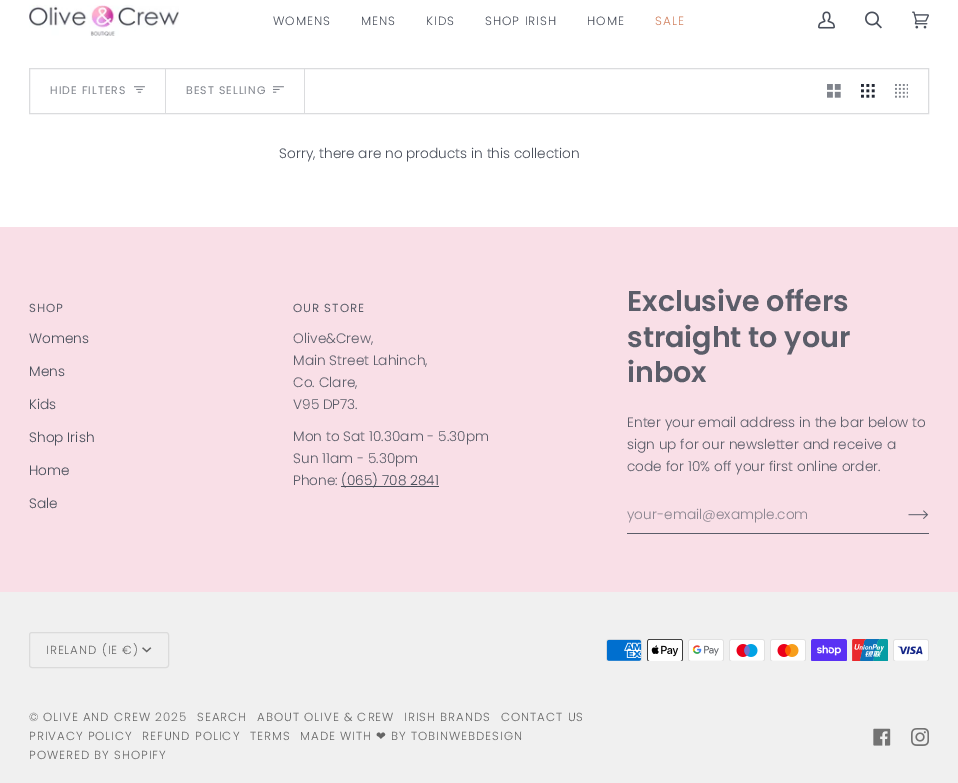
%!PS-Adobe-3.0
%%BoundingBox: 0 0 958 783
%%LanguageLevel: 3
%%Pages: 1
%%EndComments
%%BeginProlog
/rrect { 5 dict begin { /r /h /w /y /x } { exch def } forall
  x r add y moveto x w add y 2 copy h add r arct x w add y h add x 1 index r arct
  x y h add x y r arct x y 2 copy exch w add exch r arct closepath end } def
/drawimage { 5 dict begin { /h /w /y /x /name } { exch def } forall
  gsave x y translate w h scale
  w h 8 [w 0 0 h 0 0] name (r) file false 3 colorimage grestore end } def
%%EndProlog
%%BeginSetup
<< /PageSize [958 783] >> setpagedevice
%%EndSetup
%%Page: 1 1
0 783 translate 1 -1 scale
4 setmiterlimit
1 setgray
0 0 958 783 rectfill
(images/1.raw) 29 5 150 31 drawimage
(images/2.raw) 818 11 17 18 drawimage
(images/3.raw) 865 11 17 18 drawimage
(images/4.raw) 912 11 17 18 drawimage
0.859 0.863 0.871 setrgbcolor
29.5 68.5 899 45 rectstroke
165 69 1 44 rectfill
(images/5.raw) 134 86 11 7 drawimage
304 69 1 44 rectfill
(images/6.raw) 273 86 11 7 drawimage
(images/7.raw) 827 84 14 14 drawimage
(images/8.raw) 861 84 14 14 drawimage
(images/9.raw) 895 84 13 14 drawimage
0.976 0.875 0.906 setrgbcolor
0 227 958 365 rectfill
0.286 0.31 0.357 setrgbcolor
341 486 98 1 rectfill
0.357 0.365 0.412 setrgbcolor
627 533 302 1 rectfill
(images/10.raw) 908 510 21 9 drawimage
0.941 setgray
0 592 958 191 rectfill
0.859 setgray
29.5 632.5 139 35 2.5 rrect stroke
(images/11.raw) 142 647 10 6 drawimage
(images/12.raw) 606 639 36 22 drawimage
(images/13.raw) 647 639 36 22 drawimage
(images/14.raw) 688 639 36 22 drawimage
(images/15.raw) 729 639 36 22 drawimage
(images/16.raw) 770 639 36 22 drawimage
(images/17.raw) 811 639 36 22 drawimage
(images/18.raw) 852 639 36 22 drawimage
(images/19.raw) 893 639 36 22 drawimage
(images/20.raw) 873 728 18 18 drawimage
(images/21.raw) 911 728 18 18 drawimage
/Poppins-Light [12 0 0 -12 0 0] selectfont
0.286 0.31 0.357 setrgbcolor
273 25 moveto 1 0 (WOMENS) ashow
361 25 moveto 1 0 (MENS) ashow
426 25 moveto 1 0 (KIDS) ashow
485 25 moveto 1 0 (SHOP IRISH) ashow
587 25 moveto 1 0 (HOME) ashow
0.824 0.506 0.373 setrgbcolor
655 25 moveto 1 0 (SALE) ashow
/Poppins-Regular [11 0 0 -11 0 0] selectfont
0.502 0.518 0.549 setrgbcolor
50 94 moveto 1 0 (HIDE FILTERS) ashow
186 94 moveto 1 0 (BEST SELLING) ashow
/Poppins-Light [13.7 0 0 -13.7 0 0] selectfont
0.286 0.31 0.357 setrgbcolor
279 158 moveto (Sorry, there are no products in this collection) show
/Poppins-Regular [11.75 0 0 -11.75 0 0] selectfont
0.357 0.365 0.412 setrgbcolor
29 312 moveto 1 0 (SHOP) ashow
/Poppins-Light [13.7 0 0 -13.7 0 0] selectfont
0.286 0.31 0.357 setrgbcolor
29 343 moveto (Womens) show
29 376 moveto (Mens) show
29 409 moveto (Kids) show
29 442 moveto (Shop Irish) show
29 475 moveto (Home) show
29 508 moveto (Sale) show
/Poppins-Regular [11.75 0 0 -11.75 0 0] selectfont
0.357 0.365 0.412 setrgbcolor
293 312 moveto 1 0 (OUR STORE) ashow
/Poppins-Light [13.7 0 0 -13.7 0 0] selectfont
293 343 moveto (Olive&Crew,) show
293 365 moveto (Main Street Lahinch,) show
293 387 moveto (Co. Clare,) show
293 409 moveto (V95 DP73.) show
293 441 moveto (Mon to Sat 10.30am - 5.30pm) show
293 463 moveto (Sun 11am - 5.30pm) show
293 485 moveto (Phone:) show
0.286 0.31 0.357 setrgbcolor
341 485 moveto (\(065\) 708 2841) show
/Poppins-SemiBold [28.5 0 0 -28.5 0 0] selectfont
0.357 0.365 0.412 setrgbcolor
627 311 moveto (Exclusive offers) show
627 347 moveto (straight to your) show
627 382 moveto (inbox) show
/Poppins-Light [13.7 0 0 -13.7 0 0] selectfont
627 427 moveto (Enter your email address in the bar below to) show
627 449 moveto (sign up for our newsletter and receive a) show
627 471 moveto (code for 10% off your first online order.) show
0.541 0.518 0.561 setrgbcolor
627 519 moveto (your-email@example.com) show
/Poppins-Light [11.75 0 0 -11.75 0 0] selectfont
0.396 setgray
46 654 moveto 1 0 (IRELAND \(IE €\)) ashow
0.451 setgray
29 721 moveto 1 0 (©) ashow
0.396 setgray
43 721 moveto 1 0 (OLIVE AND CREW) ashow
0.451 setgray
155 721 moveto 1 0 (2025) ashow
0.396 setgray
197 721 moveto 1 0 (SEARCH) ashow
257 721 moveto 1 0 (ABOUT OLIVE & CREW) ashow
404 721 moveto 1 0 (IRISH BRANDS) ashow
501 721 moveto 1 0 (CONTACT US) ashow
29 740 moveto 1 0 (PRIVACY POLICY) ashow
142 740 moveto 1 0 (REFUND POLICY) ashow
250 740 moveto 1 0 (TERMS) ashow
300 740 moveto 1 0 (MADE WITH) ashow
/DejaVuSans-Regular [11.75 0 0 -11.75 0 0] selectfont
376 740 moveto 1 0 (❤) ashow
/Poppins-Light [11.75 0 0 -11.75 0 0] selectfont
391 740 moveto 1 0 (BY TOBINWEBDESIGN) ashow
29 759 moveto 1 0 (POWERED BY SHOPIFY) ashow
showpage
%%EOF
